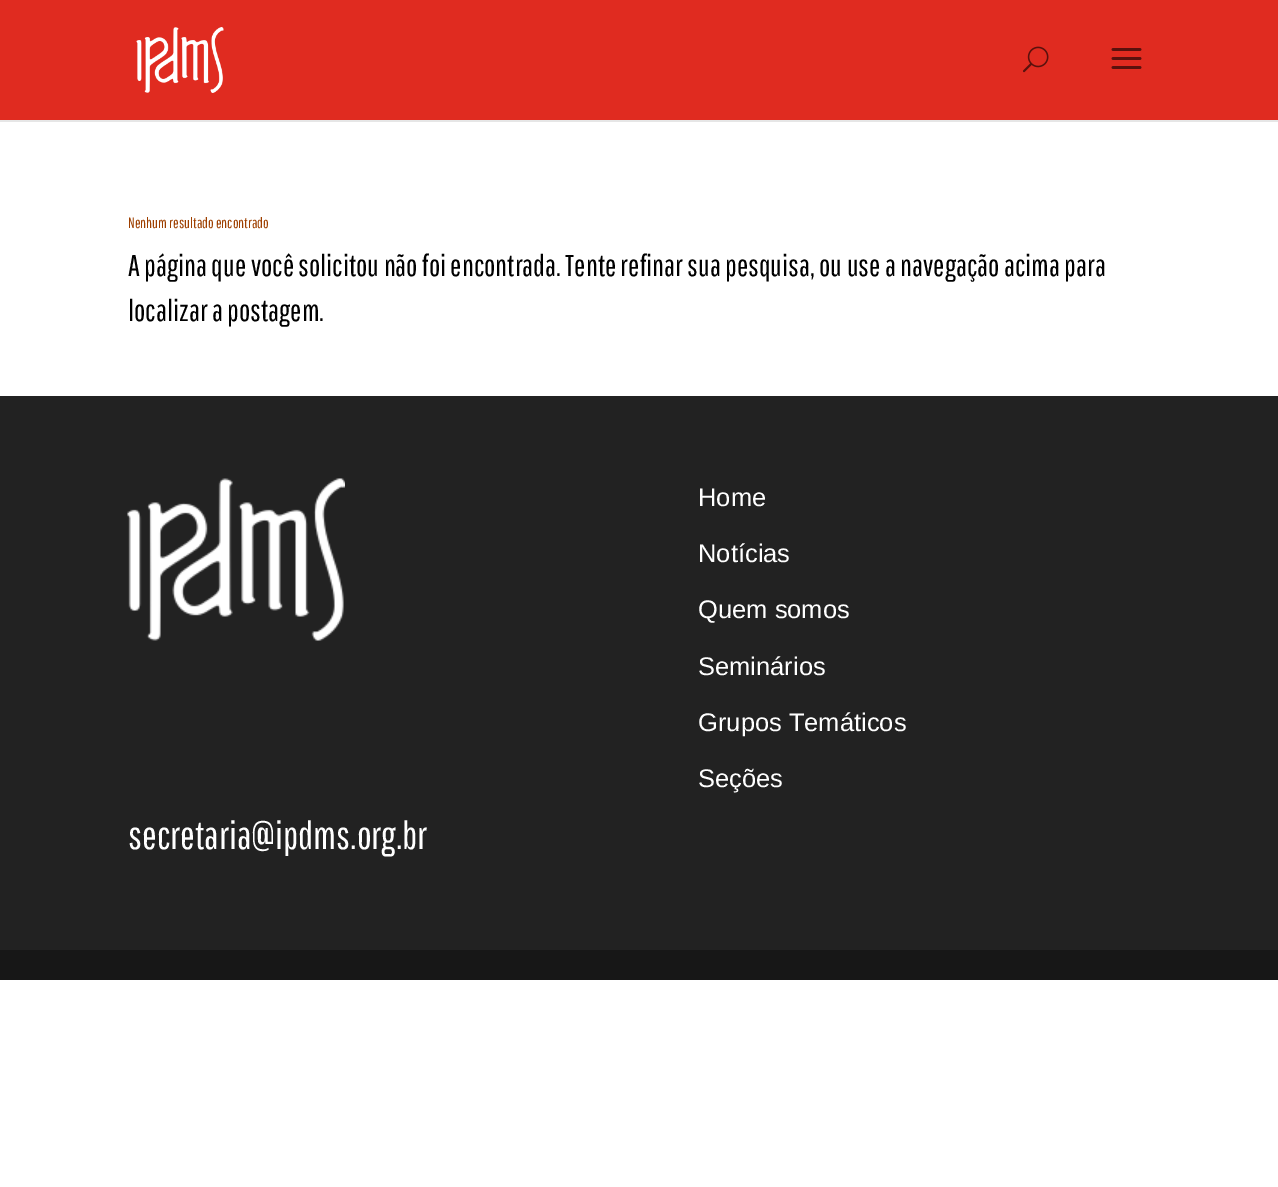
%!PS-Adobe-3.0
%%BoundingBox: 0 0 1278 1187
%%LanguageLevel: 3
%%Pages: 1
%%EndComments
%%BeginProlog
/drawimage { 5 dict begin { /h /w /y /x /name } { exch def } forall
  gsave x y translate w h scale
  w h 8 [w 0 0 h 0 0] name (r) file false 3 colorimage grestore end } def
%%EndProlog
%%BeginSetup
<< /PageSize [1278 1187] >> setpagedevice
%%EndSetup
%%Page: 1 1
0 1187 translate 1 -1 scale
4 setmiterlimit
1 setgray
0 0 1278 1187 rectfill
0.902 setgray
0 120 1278 2 rectfill
0.878 0.169 0.125 setrgbcolor
0 0 1278 120 rectfill
(images/1.raw) 136 27 88 66 drawimage
(images/2.raw) 1023 46 26 27 drawimage
(images/3.raw) 1111 48 31 21 drawimage
0.133 setgray
0 396 1278 554 rectfill
(images/4.raw) 127 478 218 163 drawimage
0.09 setgray
0 950 1278 30 rectfill
/PathwayGothicOne-Regular [15 0 0 -15 0 0] selectfont
0.62 0.247 0 setrgbcolor
128 228 moveto (Nenhum resultado encontrado) show
/PathwayGothicOne-Regular [30 0 0 -30 0 0] selectfont
0 setgray
128 276 moveto (A página que você solicitou não foi encontrada. Tente refinar sua pesquisa, ou use a navegação acima para) show
128 321 moveto (localizar a postagem.) show
/LiberationSans-Regular [25.5 0 0 -25.5 0 0] selectfont
1 setgray
698 506 moveto (Home) show
698 562 moveto (Notícias) show
698 618 moveto (Quem somos) show
698 675 moveto (Seminários) show
698 731 moveto (Grupos Temáticos) show
698 787 moveto (Seções) show
/PathwayGothicOne-Regular [39 0 0 -39 0 0] selectfont
128 849 moveto (secretaria@ipdms.org.br) show
showpage
%%EOF
